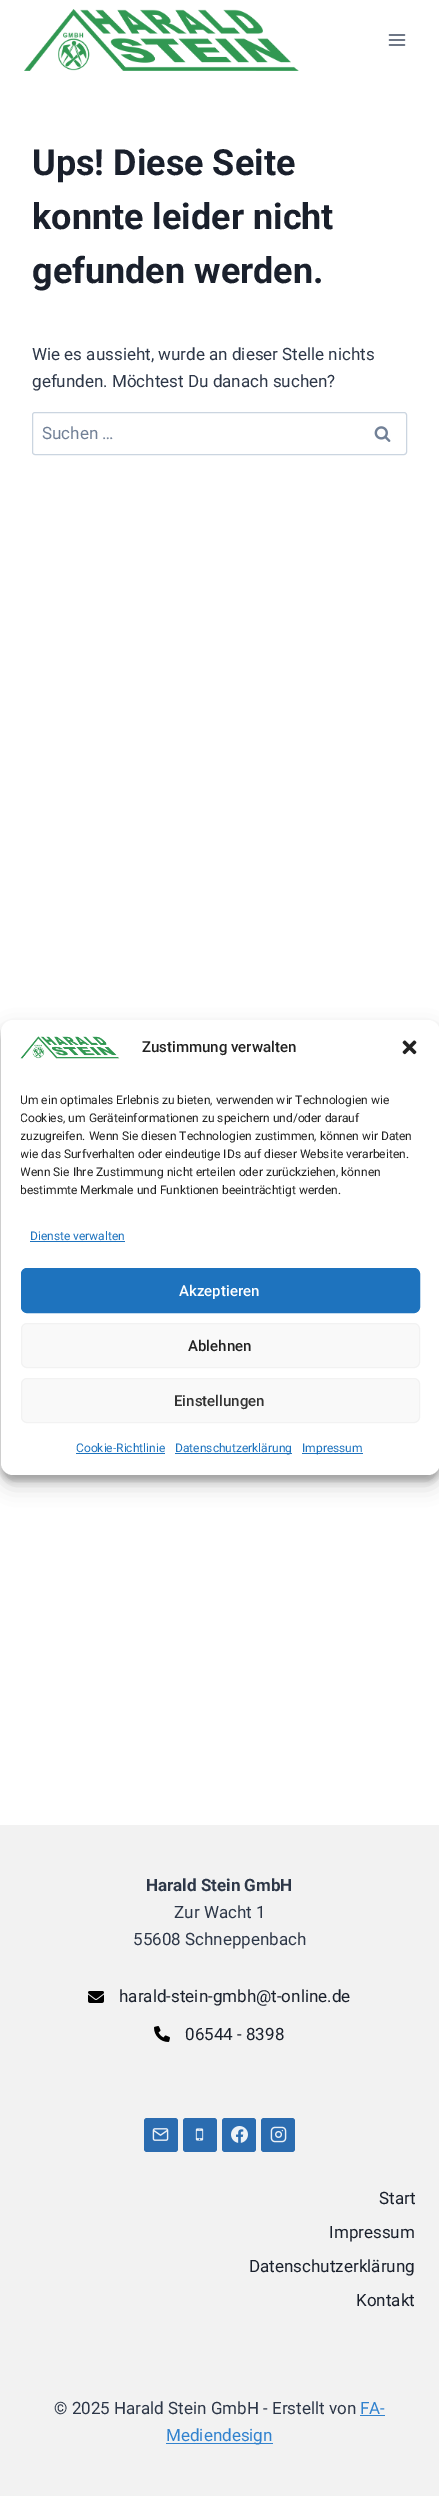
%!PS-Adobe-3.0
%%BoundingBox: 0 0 439 2496
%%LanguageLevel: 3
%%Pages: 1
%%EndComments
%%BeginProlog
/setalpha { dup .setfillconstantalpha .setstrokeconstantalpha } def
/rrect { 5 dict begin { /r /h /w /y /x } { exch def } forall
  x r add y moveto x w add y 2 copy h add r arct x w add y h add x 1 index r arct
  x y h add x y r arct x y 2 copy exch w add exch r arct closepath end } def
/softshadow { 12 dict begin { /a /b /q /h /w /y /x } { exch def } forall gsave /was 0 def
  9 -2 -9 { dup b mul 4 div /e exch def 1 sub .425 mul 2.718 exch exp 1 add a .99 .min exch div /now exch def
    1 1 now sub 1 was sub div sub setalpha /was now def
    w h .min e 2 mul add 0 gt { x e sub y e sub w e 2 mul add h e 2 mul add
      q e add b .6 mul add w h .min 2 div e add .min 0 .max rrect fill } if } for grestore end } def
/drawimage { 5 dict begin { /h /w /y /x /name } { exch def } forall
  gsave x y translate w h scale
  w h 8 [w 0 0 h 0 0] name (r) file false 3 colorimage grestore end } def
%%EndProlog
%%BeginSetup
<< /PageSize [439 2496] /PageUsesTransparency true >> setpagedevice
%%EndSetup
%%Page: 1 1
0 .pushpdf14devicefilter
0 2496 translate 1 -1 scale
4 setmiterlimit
1 setgray
0 0 439 2496 rectfill
(images/1.raw) 24 9 275 62 drawimage
(images/2.raw) 388 34 18 12 drawimage
0.796 0.835 0.878 setrgbcolor
32.5 412.5 374 42 2.5 rrect stroke
(images/3.raw) 374 426 17 16 drawimage
0.949 setgray
0 1825 439 671 rectfill
(images/4.raw) 88 1991 16 12 drawimage
(images/5.raw) 154 2026 16 16 drawimage
0.169 0.424 0.69 setrgbcolor
144 2118 34 34 3 rrect fill
(images/6.raw) 152 2128 17 13 drawimage
183 2118 34 34 3 rrect fill
(images/7.raw) 195 2128 9 13 drawimage
222 2118 34 34 3 rrect fill
(images/8.raw) 231 2126 17 17 drawimage
261 2118 34 34 3 rrect fill
(images/9.raw) 270 2126 17 17 drawimage
0.192 0.51 0.808 setrgbcolor
360 2415 25 1 rectfill
166 2443 107 1 rectfill
gsave
newpath 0 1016 moveto 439 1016 lineto 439 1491 lineto 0 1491 lineto closepath 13 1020 moveto 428 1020 lineto 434.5 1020 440 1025.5 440 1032 curveto 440 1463 lineto 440 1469.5 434.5 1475 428 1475 curveto 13 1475 lineto 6.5 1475 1 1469.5 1 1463 curveto 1 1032 lineto 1 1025.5 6.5 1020 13 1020 curveto closepath eoclip newpath
0 setgray
1 1026 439 455 12 3 0.23 softshadow
grestore
gsave
newpath 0 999 moveto 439 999 lineto 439 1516 lineto 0 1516 lineto closepath 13 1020 moveto 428 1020 lineto 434.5 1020 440 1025.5 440 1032 curveto 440 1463 lineto 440 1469.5 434.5 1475 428 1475 curveto 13 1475 lineto 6.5 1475 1 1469.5 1 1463 curveto 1 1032 lineto 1 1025.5 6.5 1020 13 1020 curveto closepath eoclip newpath
0 setgray
1 1030 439 455 12 10 0.19 softshadow
grestore
1 setgray
1 1020 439 455 12 rrect fill
(images/10.raw) 20 1036 100 23 drawimage
(images/11.raw) 402 1040 15 15 drawimage
0.118 0.451 0.745 setrgbcolor
30 1241 95 1 rectfill
21.5 1268.5 398 44 5.5 rrect gsave fill grestore
stroke
0.976 setgray
21.5 1323.5 398 44 5.5 rrect gsave fill grestore
0.949 setgray
stroke
0.976 setgray
21.5 1378.5 398 44 5.5 rrect gsave fill grestore
0.949 setgray
stroke
0.118 0.451 0.745 setrgbcolor
76 1453 89 1 rectfill
175 1453 117 1 rectfill
302 1453 61 1 rectfill
/Roboto-Bold [36 0 0 -36 0 0] selectfont
0.102 0.125 0.173 setrgbcolor
32 175 moveto (Ups! Diese Seite) show
32 229 moveto (konnte leider nicht) show
32 283 moveto (gefunden werden.) show
/Roboto-Regular [17 0 0 -17 0 0] selectfont
0.176 0.216 0.282 setrgbcolor
32 360 moveto (Wie es aussieht, wurde an dieser Stelle nichts) show
32 387 moveto (gefunden. Möchtest Du danach suchen?) show
0.443 0.502 0.588 setrgbcolor
42 439 moveto (Suchen …) show
/Roboto-Bold [17 0 0 -17 0 0] selectfont
0.176 0.216 0.282 setrgbcolor
146 1891 moveto (Harald Stein GmbH) show
/Roboto-Regular [17 0 0 -17 0 0] selectfont
174 1918 moveto (Zur Wacht 1) show
133 1945 moveto (55608 Schneppenbach) show
0.102 0.125 0.173 setrgbcolor
119 2002 moveto (harald-stein-gmbh@t-online.de) show
185 2040 moveto (06544 - 8398) show
379 2204 moveto (Start) show
329 2238 moveto (Impressum) show
249 2272 moveto (Datenschutzerklärung) show
356 2306 moveto (Kontakt) show
0.176 0.216 0.282 setrgbcolor
54 2414 moveto (© 2025 Harald Stein GmbH - Erstellt von) show
0.192 0.51 0.808 setrgbcolor
360 2414 moveto (FA-) show
166 2441 moveto (Mediendesign) show
/Roboto-Medium [15 0 0 -15 0 0] selectfont
0.133 setgray
142 1052 moveto (Zustimmung verwalten) show
gsave
21 1079 399 132 rectclip
/Roboto-Regular [12 0 0 -12 0 0] selectfont
20 1104 moveto (Um ein optimales Erlebnis zu bieten, verwenden wir Technologien wie) show
20 1122 moveto (Cookies, um Geräteinformationen zu speichern und/oder darauf) show
20 1140 moveto (zuzugreifen. Wenn Sie diesen Technologien zustimmen, können wir Daten) show
20 1158 moveto (wie das Surfverhalten oder eindeutige IDs auf dieser Website verarbeiten.) show
20 1176 moveto (Wenn Sie Ihre Zustimmung nicht erteilen oder zurückziehen, können) show
20 1194 moveto (bestimmte Merkmale und Funktionen beeinträchtigt werden.) show
grestore
/Roboto-Regular [12 0 0 -12 0 0] selectfont
0.118 0.451 0.745 setrgbcolor
30 1240 moveto (Dienste verwalten) show
/Roboto-Medium [15 0 0 -15 0 0] selectfont
1 setgray
179 1296 moveto (Akzeptieren) show
0.133 setgray
188 1351 moveto (Ablehnen) show
0.2 setgray
174 1406 moveto (Einstellungen) show
/Roboto-Regular [12 0 0 -12 0 0] selectfont
0.118 0.451 0.745 setrgbcolor
76 1452 moveto (Cookie-Richtlinie) show
175 1452 moveto (Datenschutzerklärung) show
302 1452 moveto (Impressum) show
.poppdf14devicefilter showpage
%%EOF
